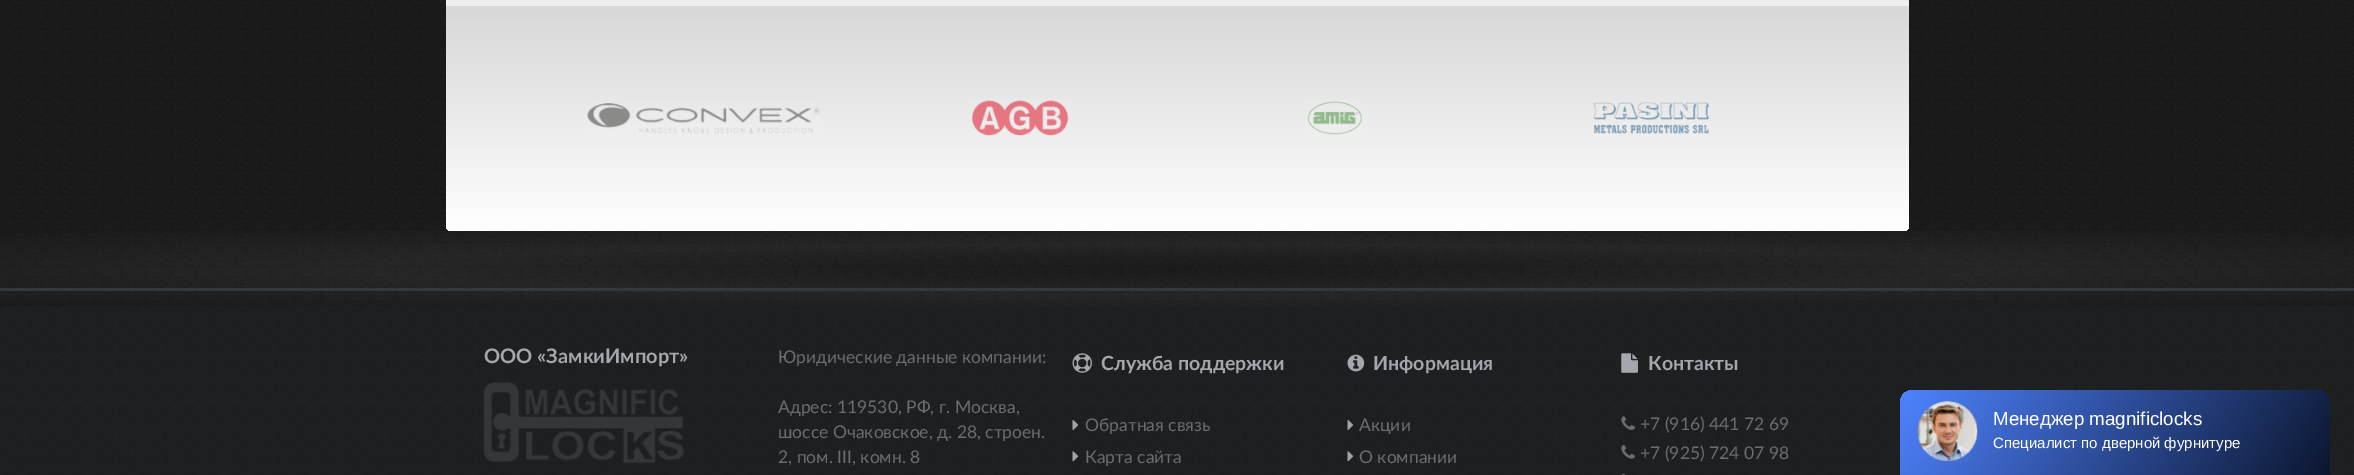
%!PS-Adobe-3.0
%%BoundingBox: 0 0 2354 475
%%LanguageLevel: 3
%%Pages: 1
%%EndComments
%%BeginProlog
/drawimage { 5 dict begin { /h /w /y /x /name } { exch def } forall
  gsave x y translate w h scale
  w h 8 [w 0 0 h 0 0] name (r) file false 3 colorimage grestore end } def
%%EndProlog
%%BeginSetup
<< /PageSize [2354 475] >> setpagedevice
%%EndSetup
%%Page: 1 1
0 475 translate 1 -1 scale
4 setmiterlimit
1 setgray
0 0 2354 475 rectfill
(images/1.raw) 0 0 2354 306 drawimage
0.937 setgray
446 0 1463 6 rectfill
gsave newpath 446 6 moveto 1909 6 lineto 1909 225 lineto 1909 228.5 1906.5 231 1903 231 curveto 452 231 lineto 448.5 231 446 228.5 446 225 curveto closepath clip newpath
<< /ShadingType 2 /ColorSpace /DeviceRGB /Coords [1178 6.2 1178 231] /Extend [true true] /Function << /FunctionType 2 /Domain [0 1] /C0 [0.847 0.847 0.847] /C1 [1 1 1] /N 1 >> >> shfill grestore
(images/2.raw) 587 103 233 31 drawimage
(images/3.raw) 971 100 98 36 drawimage
(images/4.raw) 1307 101 55 34 drawimage
(images/5.raw) 1593 102 116 32 drawimage
(images/6.raw) 0 306 2354 169 drawimage
0.204 0.22 0.231 setrgbcolor
0 288 2354 3 rectfill
(images/7.raw) 483 382 201 82 drawimage
(images/8.raw) 1072 353 20 20 drawimage
(images/9.raw) 1072 420 6 10 drawimage
(images/10.raw) 1072 451 7 11 drawimage
(images/11.raw) 1347 354 18 18 drawimage
(images/12.raw) 1347 420 6 10 drawimage
(images/13.raw) 1347 451 7 11 drawimage
(images/14.raw) 1621 353 17 20 drawimage
(images/15.raw) 1621 416 14 14 drawimage
(images/16.raw) 1621 445 14 14 drawimage
(images/17.raw) 1622 473 3 2 drawimage
gsave newpath 1913 390 moveto 2317 390 lineto 2324 390 2330 396 2330 403 curveto 2330 475 lineto 1900 475 lineto 1900 403 lineto 1900 396 1906 390 1913 390 curveto closepath clip newpath
<< /ShadingType 2 /ColorSpace /DeviceRGB /Coords [2286 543 1944 322] /Extend [true true] /Function << /FunctionType 2 /Domain [0 1] /C0 [0.047 0.086 0.184] /C1 [0.306 0.514 1] /N 1 >> >> shfill grestore
(images/18.raw) 1917 401 61 61 drawimage
/Lato-Bold [20 0 0 -20 0 0] selectfont
0.643 0.655 0.675 setrgbcolor
484 363 moveto (ООО «ЗамкиИмпорт») show
/Lato-Regular [17.5 0 0 -17.5 0 0] selectfont
0.42 0.427 0.443 setrgbcolor
778 363 moveto (Юридические данные компании:) show
778 413 moveto (Адрес: 119530, РФ, г. Москва,) show
778 438 moveto (шоссе Очаковское, д. 28, строен.) show
778 463 moveto (2, пом. III, комн. 8) show
/Lato-Bold [19.5 0 0 -19.5 0 0] selectfont
0.643 0.655 0.675 setrgbcolor
1101 370 moveto (Служба поддержки) show
/Lato-Regular [17.5 0 0 -17.5 0 0] selectfont
0.42 0.427 0.443 setrgbcolor
1085 431 moveto (Обратная связь) show
1085 463 moveto (Карта сайта) show
/Lato-Bold [19.5 0 0 -19.5 0 0] selectfont
0.643 0.655 0.675 setrgbcolor
1373 370 moveto (Информация) show
/Lato-Regular [17.5 0 0 -17.5 0 0] selectfont
0.42 0.427 0.443 setrgbcolor
1359 431 moveto (Акции) show
1359 463 moveto (О компании) show
/Lato-Bold [19.5 0 0 -19.5 0 0] selectfont
0.643 0.655 0.675 setrgbcolor
1648 370 moveto (Контакты) show
/Lato-Regular [17.5 0 0 -17.5 0 0] selectfont
0.42 0.427 0.443 setrgbcolor
1640 430 moveto (+7 \(916\) 441 72 69) show
1640 459 moveto (+7 \(925\) 724 07 98) show
/LiberationSans-Regular [18.75 0 0 -18.75 0 0] selectfont
1 setgray
1993 425 moveto (Менеджер magnificlocks) show
/LiberationSans-Regular [15 0 0 -15 0 0] selectfont
1993 448 moveto (Специалист по дверной фурнитуре) show
showpage
%%EOF
